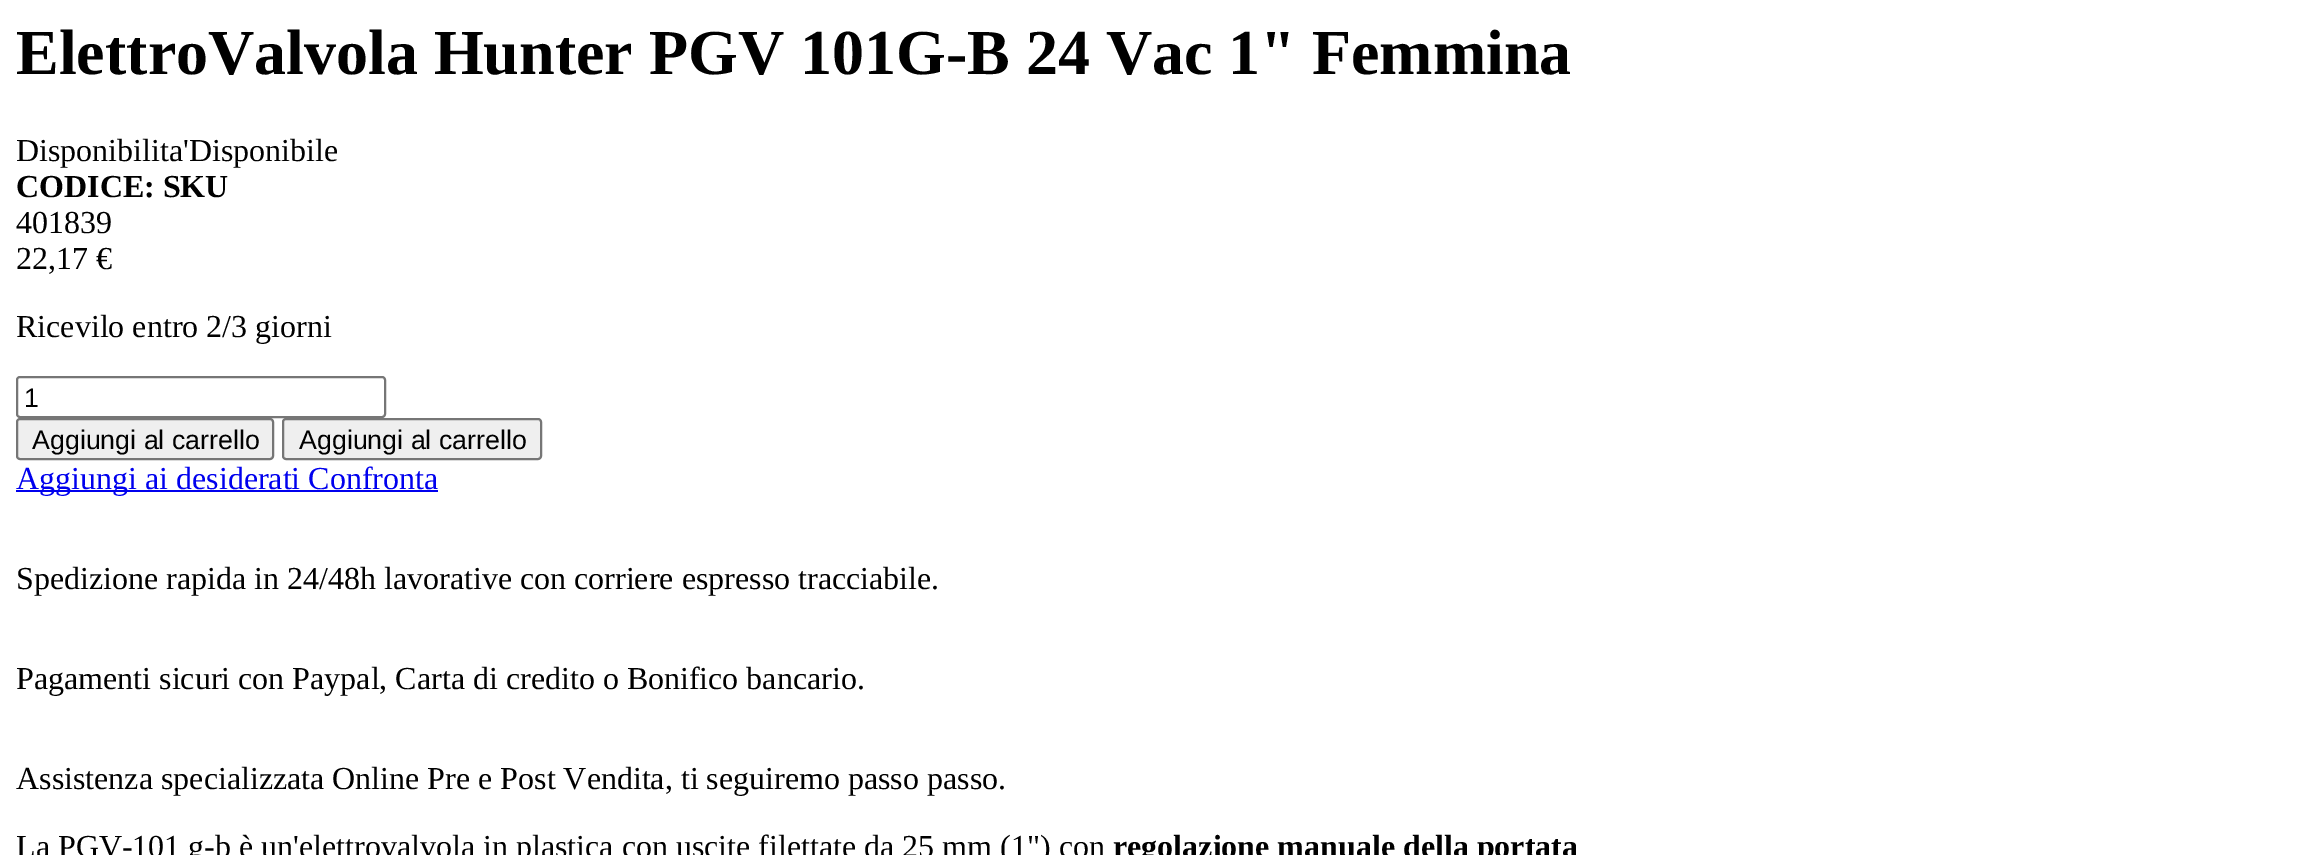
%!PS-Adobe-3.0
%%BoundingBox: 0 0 2305 855
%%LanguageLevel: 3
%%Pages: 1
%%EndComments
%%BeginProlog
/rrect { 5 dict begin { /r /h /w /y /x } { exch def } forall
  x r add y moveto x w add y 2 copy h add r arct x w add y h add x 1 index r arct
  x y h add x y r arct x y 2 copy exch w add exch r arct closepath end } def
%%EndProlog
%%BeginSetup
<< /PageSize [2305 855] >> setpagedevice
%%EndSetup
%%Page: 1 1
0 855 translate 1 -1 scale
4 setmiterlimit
1 setgray
0 0 2305 855 rectfill
0.463 setgray
2 setlinewidth
17 377 368 40 3 rrect stroke
0.937 setgray
17 419 256 40 3 rrect gsave fill grestore
0.463 setgray
stroke
0.937 setgray
283 419 258 40 3 rrect gsave fill grestore
0.463 setgray
stroke
0 0 0.933 setrgbcolor
16 490 422 2 rectfill
/LiberationSerif-Bold [64 0 0 -64 0 0] selectfont
0 setgray
16 74 moveto (ElettroValvola Hunter PGV 101G-B 24 Vac 1" Femmina) show
/LiberationSerif-Regular [32 0 0 -32 0 0] selectfont
16 161 moveto (Disponibilita'Disponibile) show
/LiberationSerif-Bold [32 0 0 -32 0 0] selectfont
16 197 moveto (CODICE: SKU) show
/LiberationSerif-Regular [32 0 0 -32 0 0] selectfont
16 233 moveto (401839) show
16 269 moveto (22,17 €) show
16 337 moveto (Ricevilo entro 2/3 giorni) show
/LiberationSans-Regular [26.75 0 0 -26.75 0 0] selectfont
24 407 moveto (1) show
32 449 moveto (Aggiungi al carrello) show
299 449 moveto (Aggiungi al carrello) show
/LiberationSerif-Regular [32 0 0 -32 0 0] selectfont
0 0 0.933 setrgbcolor
16 489 moveto (Aggiungi ai desiderati Confronta) show
0 setgray
16 589 moveto (Spedizione rapida in 24/48h lavorative con corriere espresso tracciabile.) show
16 689 moveto (Pagamenti sicuri con Paypal, Carta di credito o Bonifico bancario.) show
16 789 moveto (Assistenza specializzata Online Pre e Post Vendita, ti seguiremo passo passo.) show
16 857 moveto (La PGV-101 g-b è un'elettrovalvola in plastica con uscite filettate da 25 mm \(1"\) con) show
/LiberationSerif-Bold [32 0 0 -32 0 0] selectfont
1113 857 moveto (regolazione manuale della portata) show
showpage
%%EOF
